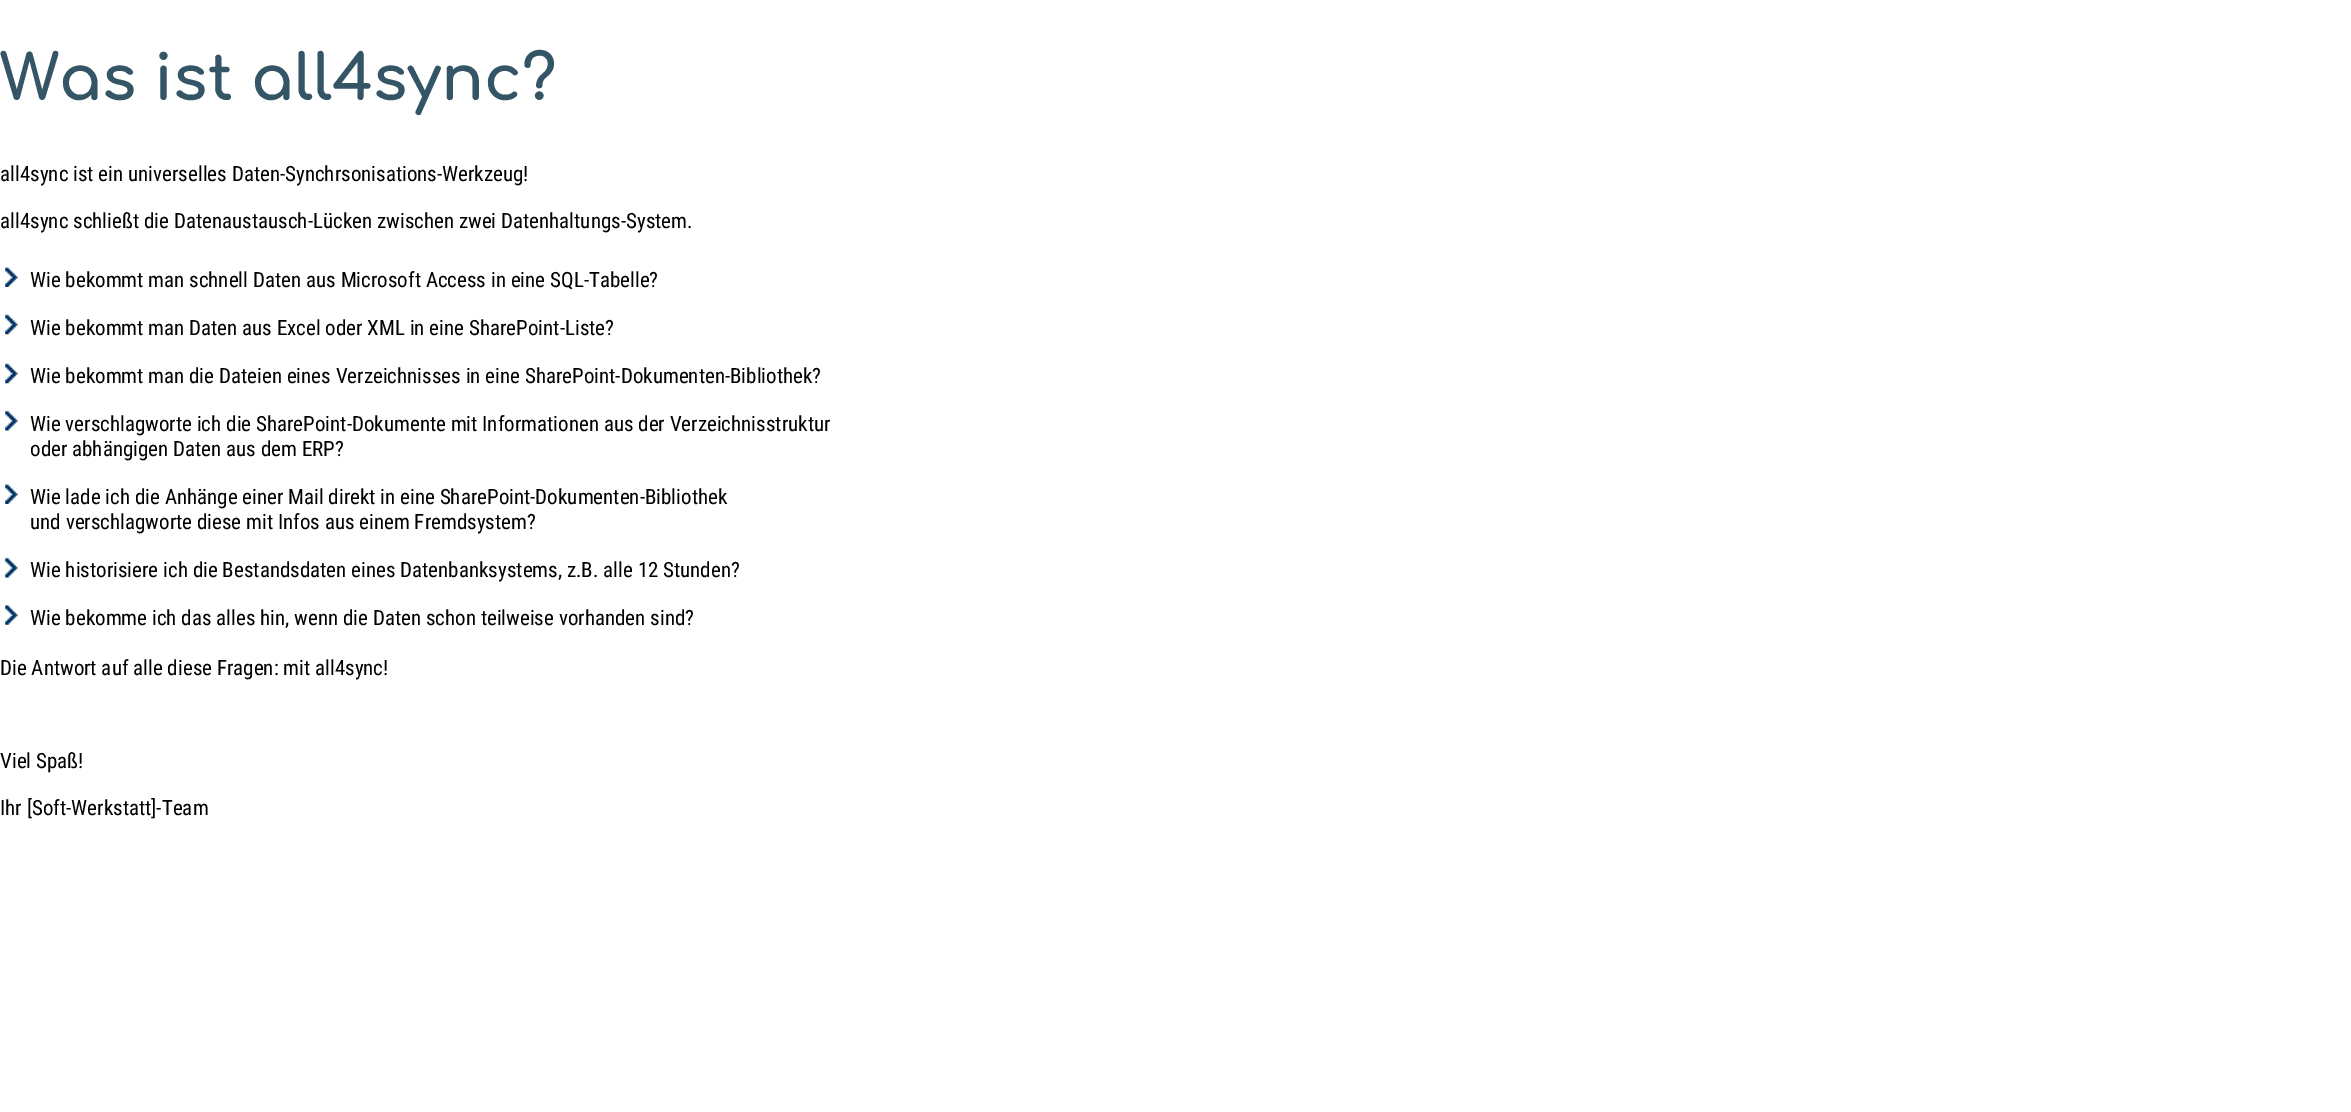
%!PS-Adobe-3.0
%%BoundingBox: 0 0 2351 1112
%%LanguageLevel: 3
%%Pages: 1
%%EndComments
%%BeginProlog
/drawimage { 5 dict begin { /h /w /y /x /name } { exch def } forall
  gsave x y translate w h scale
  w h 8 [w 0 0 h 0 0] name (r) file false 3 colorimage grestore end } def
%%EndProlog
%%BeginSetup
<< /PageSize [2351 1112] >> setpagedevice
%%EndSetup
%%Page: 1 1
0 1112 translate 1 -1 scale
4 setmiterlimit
1 setgray
0 0 2351 1112 rectfill
(images/1.raw) 5 267 13 20 drawimage
(images/2.raw) 5 314 13 21 drawimage
(images/2.raw) 5 363 13 21 drawimage
(images/3.raw) 5 410 13 21 drawimage
(images/1.raw) 5 484 13 20 drawimage
(images/3.raw) 5 557 13 21 drawimage
(images/4.raw) 5 605 13 20 drawimage
/Comfortaa-Bold [63 0 0 -63 0 0] selectfont
0.2 0.333 0.4 setrgbcolor
0 100 moveto (Was ist all4sync?) show
/RobotoCondensed-Regular [21 0 0 -21 0 0] selectfont
0 setgray
0 181 moveto (all4sync ist ein universelles Daten-Synchrsonisations-Werkzeug!) show
0 228 moveto (all4sync schließt die Datenaustausch-Lücken zwischen zwei Datenhaltungs-System.) show
30 287 moveto (Wie bekommt man schnell Daten aus Microsoft Access in eine SQL-Tabelle?) show
30 335 moveto (Wie bekommt man Daten aus Excel oder XML in eine SharePoint-Liste?) show
30 383 moveto (Wie bekommt man die Dateien eines Verzeichnisses in eine SharePoint-Dokumenten-Bibliothek?) show
30 431 moveto (Wie verschlagworte ich die SharePoint-Dokumente mit Informationen aus der Verzeichnisstruktur) show
30 456 moveto (oder abhängigen Daten aus dem ERP?) show
30 504 moveto (Wie lade ich die Anhänge einer Mail direkt in eine SharePoint-Dokumenten-Bibliothek) show
30 529 moveto (und verschlagworte diese mit Infos aus einem Fremdsystem?) show
30 577 moveto (Wie historisiere ich die Bestandsdaten eines Datenbanksystems, z.B. alle 12 Stunden?) show
30 625 moveto (Wie bekomme ich das alles hin, wenn die Daten schon teilweise vorhanden sind?) show
0 675 moveto (Die Antwort auf alle diese Fragen: mit all4sync!) show
0 768 moveto (Viel Spaß!) show
0 815 moveto (Ihr [Soft-Werkstatt]-Team) show
showpage
%%EOF
